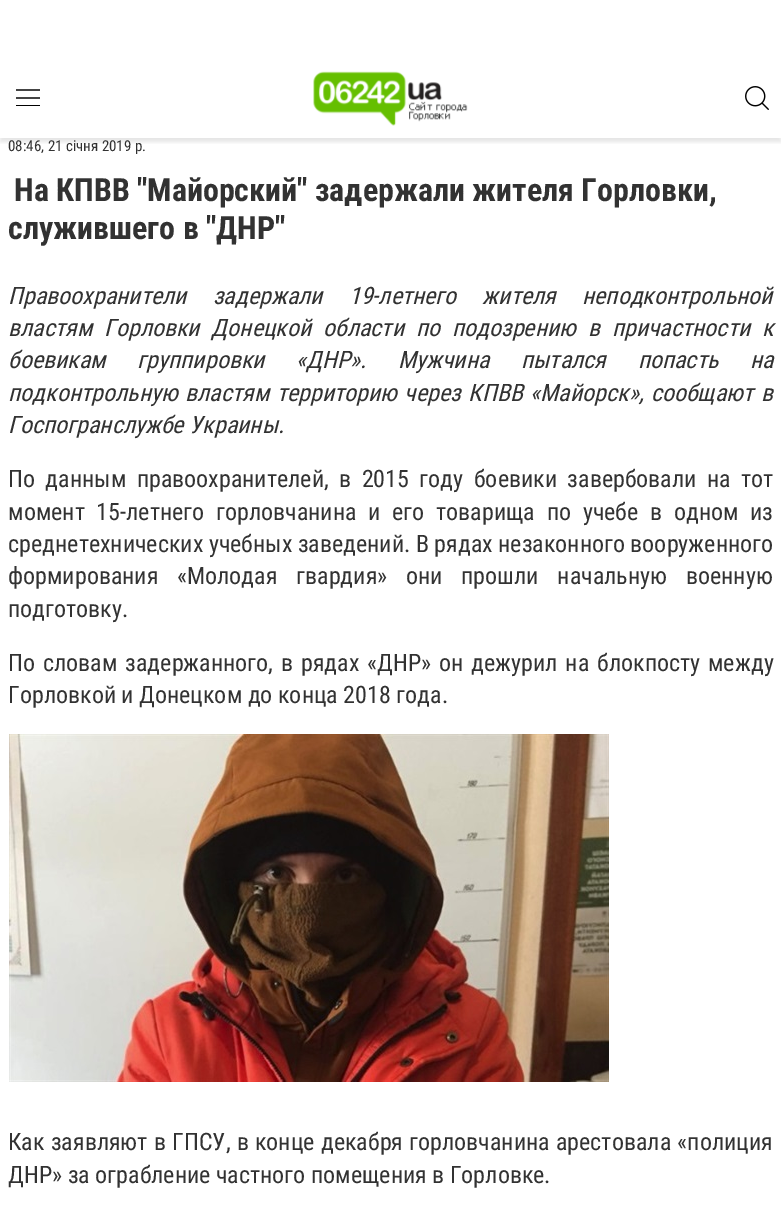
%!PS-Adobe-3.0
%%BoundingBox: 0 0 781 1213
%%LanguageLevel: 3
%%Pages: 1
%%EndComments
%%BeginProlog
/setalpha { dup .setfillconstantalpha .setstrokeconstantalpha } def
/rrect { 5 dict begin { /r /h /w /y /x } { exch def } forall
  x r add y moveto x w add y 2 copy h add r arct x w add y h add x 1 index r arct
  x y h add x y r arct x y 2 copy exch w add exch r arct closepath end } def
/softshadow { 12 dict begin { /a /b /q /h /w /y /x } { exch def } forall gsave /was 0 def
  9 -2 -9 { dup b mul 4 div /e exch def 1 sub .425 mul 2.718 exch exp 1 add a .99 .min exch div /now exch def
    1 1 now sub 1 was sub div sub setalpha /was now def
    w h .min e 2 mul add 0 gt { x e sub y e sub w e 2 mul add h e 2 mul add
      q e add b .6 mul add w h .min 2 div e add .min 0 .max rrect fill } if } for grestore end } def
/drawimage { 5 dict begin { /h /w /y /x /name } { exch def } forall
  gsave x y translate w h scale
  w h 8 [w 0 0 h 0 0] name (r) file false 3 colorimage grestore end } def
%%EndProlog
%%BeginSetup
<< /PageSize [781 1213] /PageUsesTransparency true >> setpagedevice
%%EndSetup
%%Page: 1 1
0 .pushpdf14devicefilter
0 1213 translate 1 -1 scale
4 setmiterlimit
1 setgray
0 0 781 1213 rectfill
gsave
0 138 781 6 rectclip
0 setgray
0 59 781 83 0 2 0.1 softshadow
grestore
0 setgray
1.2 setlinewidth
newpath 16 98 moveto 40 98 lineto 16 90 moveto 40 90 lineto stroke
16 105 24 1 rectfill
(images/1.raw) 313 71 155 55 drawimage
(images/2.raw) 745 86 24 24 drawimage
(images/3.raw) 9 734 600 348 drawimage
/RobotoCondensed-Regular [15 0 0 -15 0 0] selectfont
0.196 setgray
8 151 moveto (08:46, 21 січня 2019 р.) show
/RobotoCondensed-Bold [32 0 0 -32 0 0] selectfont
14 201 moveto (На КПВВ "Майорский" задержали жителя Горловки,) show
8 239 moveto (служившего в "ДНР") show
/RobotoCondensed-Italic [24 0 0 -24 0 0] selectfont
8 304 moveto 20.5 0 32 (Правоохранители задержали 19-летнего жителя неподконтрольной) widthshow
8 336 moveto 6.25 0 32 (властям Горловки Донецкой области по подозрению в причастности к) widthshow
8 368 moveto 26 0 32 (боевикам группировки «ДНР». Мужчина пытался попасть на) widthshow
8 401 moveto 1.75 0 32 (подконтрольную властям территорию через КПВВ «Майорск», сообщают в) widthshow
8 433 moveto (Госпогранслужбе Украины.) show
/RobotoCondensed-Regular [24 0 0 -24 0 0] selectfont
8 487 moveto 5 0 32 (По данным правоохранителей, в 2015 году боевики завербовали на тот) widthshow
8 520 moveto 6.25 0 32 (момент 15-летнего горловчанина и его товарища по учебе в одном из) widthshow
8 552 moveto (среднетехнических учебных заведений. В рядах незаконного вооруженного) show
8 584 moveto 13.25 0 32 (формирования «Молодая гвардия» они прошли начальную военную) widthshow
8 617 moveto (подготовку.) show
8 671 moveto 2.4 0 32 (По словам задержанного, в рядах «ДНР» он дежурил на блокпосту между) widthshow
8 703 moveto (Горловкой и Донецком до конца 2018 года.) show
8 1150 moveto 0.75 0 32 (Как заявляют в ГПСУ, в конце декабря горловчанина арестовала «полиция) widthshow
8 1183 moveto (ДНР» за ограбление частного помещения в Горловке.) show
.poppdf14devicefilter showpage
%%EOF
